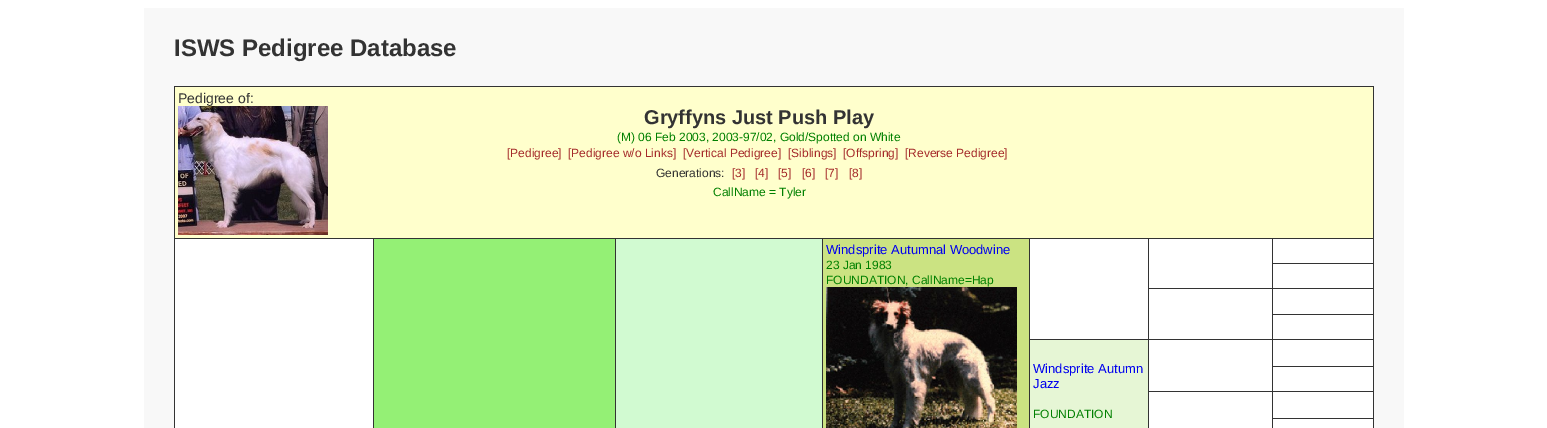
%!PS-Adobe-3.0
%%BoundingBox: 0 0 1547 428
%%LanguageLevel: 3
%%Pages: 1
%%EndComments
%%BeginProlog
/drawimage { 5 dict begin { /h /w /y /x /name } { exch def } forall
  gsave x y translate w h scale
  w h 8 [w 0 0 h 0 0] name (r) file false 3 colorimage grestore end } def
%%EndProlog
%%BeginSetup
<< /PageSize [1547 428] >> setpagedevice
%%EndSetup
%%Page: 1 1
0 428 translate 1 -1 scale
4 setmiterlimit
1 setgray
0 0 1547 428 rectfill
0.973 setgray
144 8 1260 420 rectfill
1 setgray
175 239 1198 189 rectfill
0.2 setgray
174 86 1200 1 rectfill
1373 86 1 342 rectfill
174 86 1 342 rectfill
1 1 0.8 setrgbcolor
175 87 1198 151 rectfill
(images/1.raw) 178 106 150 129 drawimage
0.2 setgray
1272 238 102 1 rectfill
1272 263 102 1 rectfill
1272 288 102 1 rectfill
1272 314 102 1 rectfill
1272 339 102 1 rectfill
1272 366 102 1 rectfill
1272 391 102 1 rectfill
1272 418 102 1 rectfill
1272 418 1 10 rectfill
1272 391 1 28 rectfill
1148 391 125 1 rectfill
1272 366 1 26 rectfill
1272 339 1 28 rectfill
1148 339 125 1 rectfill
1272 314 1 26 rectfill
1272 288 1 27 rectfill
1148 288 125 1 rectfill
1272 263 1 26 rectfill
1272 238 1 26 rectfill
1148 238 125 1 rectfill
1148 391 1 37 rectfill
1148 339 1 53 rectfill
1029 339 120 1 rectfill
1148 288 1 52 rectfill
1148 238 1 51 rectfill
1029 238 120 1 rectfill
1029 339 1 89 rectfill
1029 238 1 102 rectfill
822 238 208 1 rectfill
822 238 1 190 rectfill
615 238 208 1 rectfill
615 238 1 190 rectfill
373 238 243 1 rectfill
373 238 1 190 rectfill
174 238 200 1 rectfill
0.58 0.941 0.459 setrgbcolor
374 239 241 189 rectfill
0.82 0.98 0.82 setrgbcolor
616 239 206 189 rectfill
0.796 0.89 0.51 setrgbcolor
823 239 206 189 rectfill
(images/2.raw) 826 287 191 141 drawimage
0.902 0.965 0.835 setrgbcolor
1030 340 118 88 rectfill
/LiberationSans-Bold [24 0 0 -24 0 0] selectfont
0.2 setgray
174 56 moveto (ISWS Pedigree Database) show
/LiberationSans-Regular [14 0 0 -14 0 0] selectfont
178 103 moveto (Pedigree of:) show
/LiberationSans-Bold [20 0 0 -20 0 0] selectfont
644 124 moveto (Gryffyns Just Push Play) show
/LiberationSans-Regular [12 0 0 -12 0 0] selectfont
0 0.502 0 setrgbcolor
617 141 moveto (\(M\) 06 Feb 2003, 2003-97/02, Gold/Spotted on White) show
0.647 0.165 0.165 setrgbcolor
507 157 moveto ([Pedigree]) show
568 157 moveto ([Pedigree w/o Links]) show
683 157 moveto ([Vertical Pedigree]) show
788 157 moveto ([Siblings]) show
843 157 moveto ([Offspring]) show
905 157 moveto ([Reverse Pedigree]) show
0.2 setgray
656 177 moveto (Generations:) show
0.647 0.165 0.165 setrgbcolor
732 177 moveto ([3]) show
755 177 moveto ([4]) show
778 177 moveto ([5]) show
802 177 moveto ([6]) show
825 177 moveto ([7]) show
849 177 moveto ([8]) show
0 0.502 0 setrgbcolor
713 196 moveto (CallName = Tyler) show
/LiberationSans-Regular [13 0 0 -13 0 0] selectfont
0 0 0.933 setrgbcolor
826 254 moveto (Windsprite Autumnal Woodwine) show
/LiberationSans-Regular [12 0 0 -12 0 0] selectfont
0 0.502 0 setrgbcolor
826 269 moveto (23 Jan 1983) show
826 284 moveto (FOUNDATION, CallName=Hap) show
/LiberationSans-Regular [13 0 0 -13 0 0] selectfont
0 0 0.933 setrgbcolor
1033 373 moveto (Windsprite Autumn) show
1033 388 moveto (Jazz) show
/LiberationSans-Regular [12 0 0 -12 0 0] selectfont
0 0.502 0 setrgbcolor
1033 418 moveto (FOUNDATION) show
showpage
%%EOF
